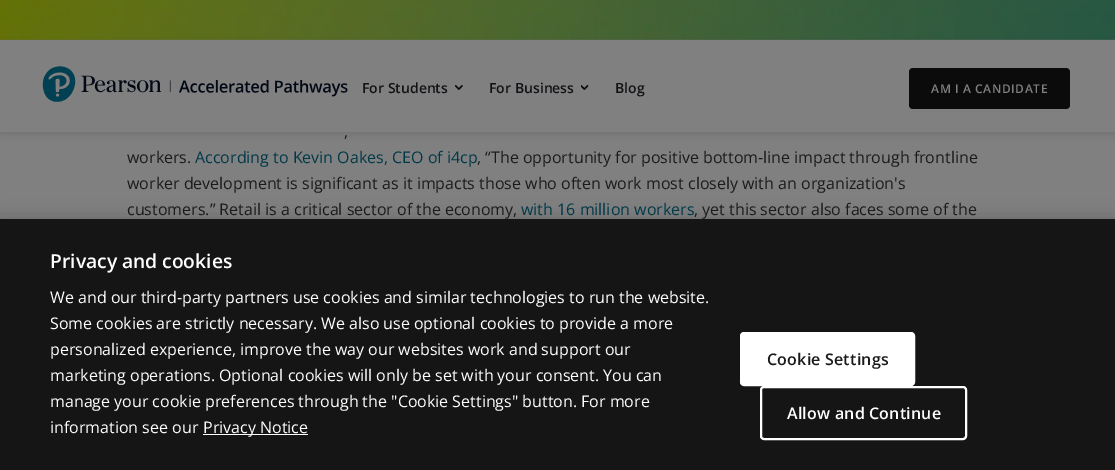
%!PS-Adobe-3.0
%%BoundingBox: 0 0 1115 470
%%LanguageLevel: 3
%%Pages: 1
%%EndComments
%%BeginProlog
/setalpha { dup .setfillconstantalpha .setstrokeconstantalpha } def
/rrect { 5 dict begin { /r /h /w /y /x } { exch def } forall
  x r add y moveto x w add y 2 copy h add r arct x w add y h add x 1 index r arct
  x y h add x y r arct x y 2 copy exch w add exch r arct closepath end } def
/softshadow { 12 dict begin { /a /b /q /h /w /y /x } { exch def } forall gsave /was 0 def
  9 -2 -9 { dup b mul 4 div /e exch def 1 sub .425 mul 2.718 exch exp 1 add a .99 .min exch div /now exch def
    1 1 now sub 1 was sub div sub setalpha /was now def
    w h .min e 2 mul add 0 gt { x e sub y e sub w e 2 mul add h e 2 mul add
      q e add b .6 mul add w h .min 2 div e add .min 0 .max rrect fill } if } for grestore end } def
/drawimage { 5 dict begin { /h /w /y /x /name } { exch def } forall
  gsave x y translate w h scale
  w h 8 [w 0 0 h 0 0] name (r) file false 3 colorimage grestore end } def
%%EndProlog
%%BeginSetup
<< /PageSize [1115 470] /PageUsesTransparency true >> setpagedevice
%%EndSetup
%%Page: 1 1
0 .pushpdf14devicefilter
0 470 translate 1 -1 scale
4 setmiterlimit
0.502 setgray
0 0 1115 470 rectfill
(images/1.raw) 0 0 1115 40 drawimage
gsave
newpath 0 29 moveto 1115 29 lineto 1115 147 lineto 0 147 lineto closepath 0 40 moveto 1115 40 lineto 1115 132 lineto 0 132 lineto closepath eoclip newpath
0.196 setgray
0 42 1115 92 0 4 0.2 softshadow
grestore
(images/2.raw) 42 66 306 36 drawimage
(images/3.raw) 455 85 8 5 drawimage
(images/4.raw) 581 85 8 5 drawimage
0.043 setgray
909 68 161 41 4 rrect fill
0 setgray
0 219 1115 251 0 9 0.2 softshadow
0.082 setgray
0 219 1115 251 rectfill
1 setgray
203 434 105 1 rectfill
741 333 173 52 3 rrect gsave fill grestore
2 setlinewidth
stroke
761 387 205 52 3 rrect stroke
/OpenSans-SemiBold [14 0 0 -14 0 0] selectfont
0.063 0.071 0.082 setrgbcolor
362 93 moveto (For Students) show
489 93 moveto (For Business) show
615 93 moveto (Blog) show
/OpenSans-SemiBold [12 0 0 -12 0 0] selectfont
0.502 setgray
931 93 moveto 0.6 0 (AM I A CANDIDATE) ashow
/OpenSans-Regular [16 0 0 -16 0 0] selectfont
0.102 setgray
344 137 moveto (,) show
127 163 moveto (workers.) show
0 0.22 0.282 setrgbcolor
195 163 moveto (According to Kevin Oakes, CEO of i4cp) show
0.102 setgray
477 163 moveto (, “The opportunity for positive bottom-line impact through frontline) show
127 189 moveto (worker development is significant as it impacts those who often work most closely with an organization's) show
127 215 moveto (customers.” Retail is a critical sector of the economy,) show
0 0.22 0.282 setrgbcolor
521 215 moveto (with 16 million workers) show
0.102 setgray
694 215 moveto (, yet this sector also faces some of the) show
/OpenSans-SemiBold [19.25 0 0 -19.25 0 0] selectfont
1 setgray
50 268 moveto (Privacy and cookies) show
/OpenSans-Regular [16 0 0 -16 0 0] selectfont
50 303 moveto (We and our third-party partners use cookies and similar technologies to run the website.) show
50 329 moveto (Some cookies are strictly necessary. We also use optional cookies to provide a more) show
50 355 moveto (personalized experience, improve the way our websites work and support our) show
50 381 moveto (marketing operations. Optional cookies will only be set with your consent. You can) show
50 407 moveto (manage your cookie preferences through the "Cookie Settings" button. For more) show
50 433 moveto (information see our) show
203 433 moveto (Privacy Notice) show
/OpenSans-SemiBold [16 0 0 -16 0 0] selectfont
0.102 setgray
767 365 moveto 0.2 0 (Cookie Settings) ashow
1 setgray
787 419 moveto 0.2 0 (Allow and Continue) ashow
.poppdf14devicefilter showpage
%%EOF
